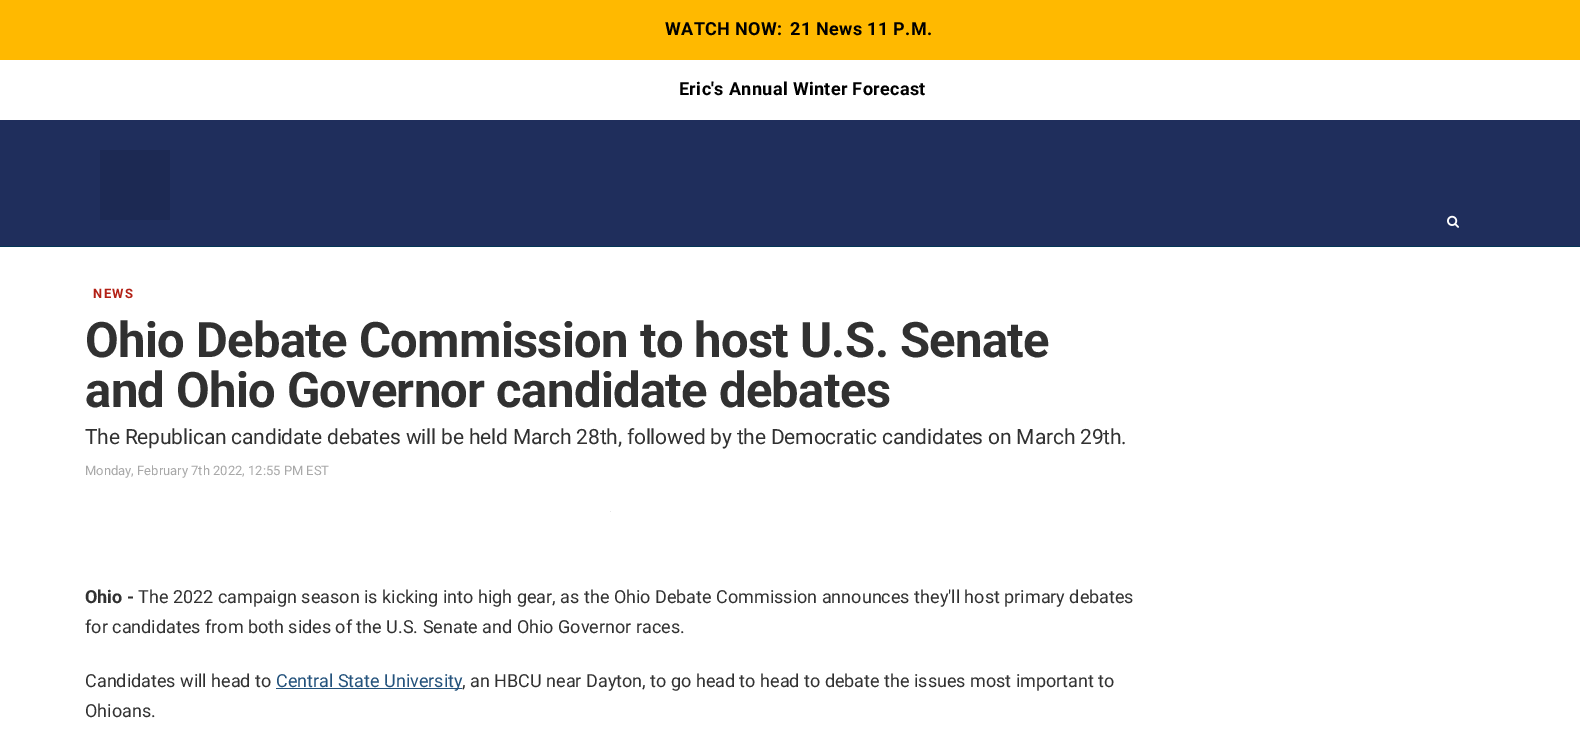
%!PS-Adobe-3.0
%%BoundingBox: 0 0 1580 731
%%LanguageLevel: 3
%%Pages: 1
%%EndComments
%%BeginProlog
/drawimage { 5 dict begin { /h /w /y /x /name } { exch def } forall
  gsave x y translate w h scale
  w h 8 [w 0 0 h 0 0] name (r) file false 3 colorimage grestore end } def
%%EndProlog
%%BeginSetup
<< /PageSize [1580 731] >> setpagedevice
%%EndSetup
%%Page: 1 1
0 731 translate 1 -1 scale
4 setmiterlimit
1 setgray
0 0 1580 731 rectfill
1 0.725 0 setrgbcolor
0 0 1580 60 rectfill
0.122 0.18 0.361 setrgbcolor
0 120 1580 126 rectfill
0.016 0.208 0.337 setrgbcolor
0 246 1580 1 rectfill
0.11 0.161 0.325 setrgbcolor
100 150 70 70 rectfill
(images/1.raw) 1447 215 12 13 drawimage
0.902 setgray
610 511 1 1 rectfill
0.137 0.322 0.486 setrgbcolor
276 688 186 1 rectfill
/Roboto-Bold [18 0 0 -18 0 0] selectfont
0 setgray
665 35 moveto 0.35 0 (WATCH NOW:) ashow
790 35 moveto 0.35 0 (21 News 11 P.M.) ashow
679 95 moveto 0.35 0 (Eric's Annual Winter Forecast) ashow
/Roboto-Bold [13 0 0 -13 0 0] selectfont
0.702 0.129 0.086 setrgbcolor
93 298 moveto 1.5 0 (NEWS) ashow
/Roboto-Bold [49 0 0 -49 0 0] selectfont
0.192 setgray
85 357 moveto -0.65 0 (Ohio Debate Commission to host U.S. Senate) ashow
85 407 moveto -0.65 0 (and Ohio Governor candidate debates) ashow
/Roboto-Regular [21 0 0 -21 0 0] selectfont
85 444 moveto -0.18 0 (The Republican candidate debates will be held March 28th, followed by the Democratic candidates on March 29th.) ashow
/Roboto-Regular [13 0 0 -13 0 0] selectfont
0.659 setgray
85 475 moveto (Monday, February 7th 2022, 12:55 PM EST) show
/Roboto-Bold [18 0 0 -18 0 0] selectfont
0.192 setgray
85 603 moveto (Ohio -) show
/Roboto-Regular [18 0 0 -18 0 0] selectfont
138 603 moveto (The 2022 campaign season is kicking into high gear, as the Ohio Debate Commission announces they'll host primary debates) show
85 633 moveto (for candidates from both sides of the U.S. Senate and Ohio Governor races.) show
85 687 moveto (Candidates will head to) show
0.137 0.322 0.486 setrgbcolor
276 687 moveto (Central State University) show
0.192 setgray
462 687 moveto (, an HBCU near Dayton, to go head to head to debate the issues most important to) show
85 717 moveto (Ohioans.) show
showpage
%%EOF
